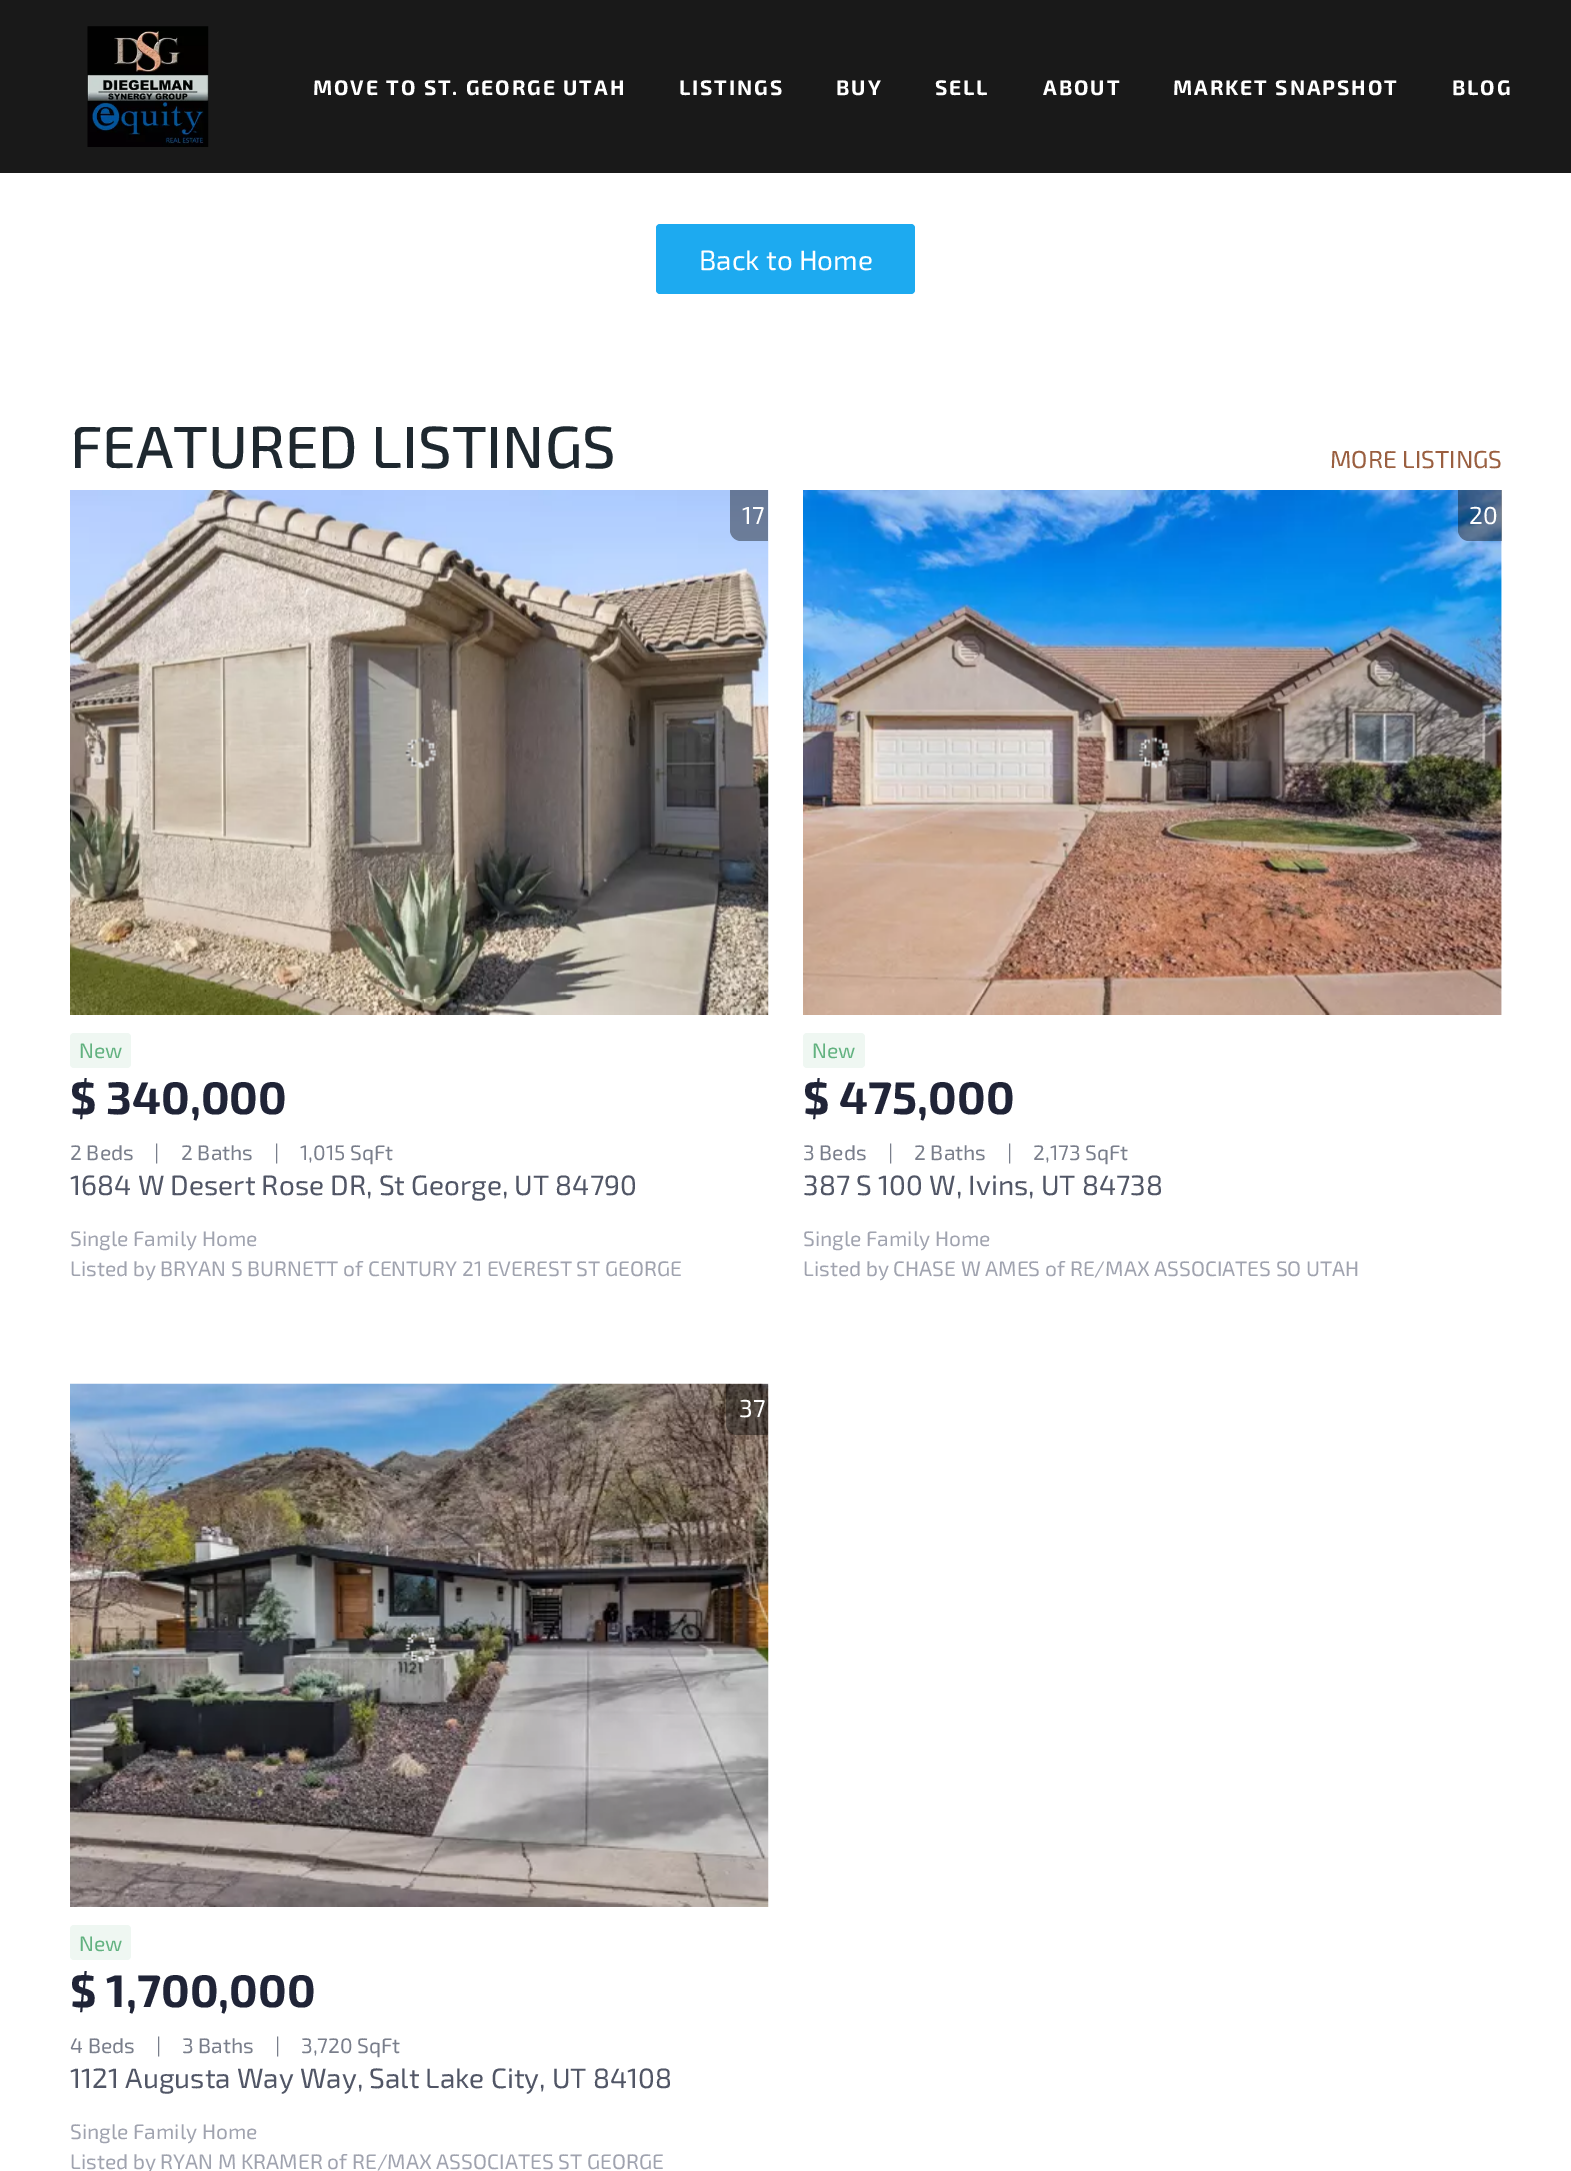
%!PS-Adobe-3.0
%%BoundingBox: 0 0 1571 2171
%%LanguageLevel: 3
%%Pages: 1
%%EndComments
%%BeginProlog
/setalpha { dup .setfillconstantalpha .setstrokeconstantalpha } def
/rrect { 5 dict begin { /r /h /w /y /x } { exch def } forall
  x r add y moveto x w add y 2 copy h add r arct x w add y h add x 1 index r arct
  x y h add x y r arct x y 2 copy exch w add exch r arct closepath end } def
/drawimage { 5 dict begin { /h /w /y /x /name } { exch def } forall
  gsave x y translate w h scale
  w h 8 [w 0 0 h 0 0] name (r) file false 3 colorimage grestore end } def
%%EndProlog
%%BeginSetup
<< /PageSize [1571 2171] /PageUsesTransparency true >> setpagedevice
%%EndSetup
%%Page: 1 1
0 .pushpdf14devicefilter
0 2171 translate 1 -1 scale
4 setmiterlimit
1 setgray
0 0 1571 2171 rectfill
0.098 setgray
0 0 1571 173 rectfill
(images/1.raw) 87 26 122 121 drawimage
0.114 0.667 0.941 setrgbcolor
656 224 259 70 4 rrect fill
(images/2.raw) 70 490 699 525 drawimage
(images/3.raw) 405 737 32 32 drawimage
0.4 setalpha
0 setgray
newpath 730 490 moveto 768 490 lineto 768 541 lineto 741 541 lineto 735 541 730 536 730 530 curveto closepath fill
1 setalpha
0.937 0.969 0.949 setrgbcolor
70 1033 61 35 4 rrect fill
(images/4.raw) 803 490 699 525 drawimage
(images/5.raw) 1138 737 32 32 drawimage
0.4 setalpha
0 setgray
newpath 1458 490 moveto 1502 490 lineto 1502 541 lineto 1469 541 lineto 1463 541 1458 536 1458 530 curveto closepath fill
1 setalpha
0.937 0.969 0.949 setrgbcolor
803 1033 62 35 4 rrect fill
(images/6.raw) 70 1383 699 524 drawimage
(images/7.raw) 405 1631 32 32 drawimage
0.4 setalpha
0 setgray
newpath 726 1384 moveto 768 1384 lineto 768 1435 lineto 737 1435 lineto 731 1435 726 1430 726 1424 curveto closepath fill
1 setalpha
0.937 0.969 0.949 setrgbcolor
70 1925 61 35 4 rrect fill
/Exo2-Bold [21 0 0 -21 0 0] selectfont
1 setgray
313 95 moveto 1.9 0 (MOVE TO ST. GEORGE UTAH) ashow
679 95 moveto 1.9 0 (LISTINGS) ashow
836 95 moveto 1.9 0 (BUY) ashow
935 95 moveto 1.9 0 (SELL) ashow
1043 95 moveto 1.9 0 (ABOUT) ashow
1173 95 moveto 1.9 0 (MARKET SNAPSHOT) ashow
1452 95 moveto 1.9 0 (BLOG) ashow
/Exo2-Regular [28 0 0 -28 0 0] selectfont
699 270 moveto (Back to Home) show
/Exo2-Medium [59.5 0 0 -59.5 0 0] selectfont
0.118 0.157 0.184 setrgbcolor
70 468 moveto (FEATURED LISTINGS) show
/Exo2-Regular [24.5 0 0 -24.5 0 0] selectfont
0.604 0.373 0.251 setrgbcolor
1330 468 moveto (MORE LISTINGS) show
1 setgray
742 524 moveto (17) show
/Exo2-Regular [21 0 0 -21 0 0] selectfont
0.384 0.698 0.502 setrgbcolor
79 1058 moveto (New) show
/Exo2-Bold [45.5 0 0 -45.5 0 0] selectfont
0.125 0.141 0.216 setrgbcolor
70 1114 moveto ($ 340,000) show
/Exo2-Regular [21 0 0 -21 0 0] selectfont
0.475 0.494 0.545 setrgbcolor
70 1160 moveto (2 Beds) show
154 1160 moveto (|) show
181 1160 moveto (2 Baths) show
274 1160 moveto (|) show
300 1160 moveto (1,015 SqFt) show
/Exo2-Regular [28 0 0 -28 0 0] selectfont
0.318 0.337 0.4 setrgbcolor
70 1195 moveto (1684 W Desert Rose DR, St George, UT 84790) show
/Exo2-Regular [21 0 0 -21 0 0] selectfont
0.627 0.639 0.686 setrgbcolor
70 1246 moveto (Single Family Home) show
70 1276 moveto (Listed by BRYAN S BURNETT of CENTURY 21 EVEREST ST GEORGE) show
/Exo2-Regular [24.5 0 0 -24.5 0 0] selectfont
1 setgray
1469 524 moveto (20) show
/Exo2-Regular [21 0 0 -21 0 0] selectfont
0.384 0.698 0.502 setrgbcolor
812 1058 moveto (New) show
/Exo2-Bold [45.5 0 0 -45.5 0 0] selectfont
0.125 0.141 0.216 setrgbcolor
803 1114 moveto ($ 475,000) show
/Exo2-Regular [21 0 0 -21 0 0] selectfont
0.475 0.494 0.545 setrgbcolor
803 1160 moveto (3 Beds) show
888 1160 moveto (|) show
914 1160 moveto (2 Baths) show
1007 1160 moveto (|) show
1033 1160 moveto (2,173 SqFt) show
/Exo2-Regular [28 0 0 -28 0 0] selectfont
0.318 0.337 0.4 setrgbcolor
803 1195 moveto (387 S 100 W, Ivins, UT 84738) show
/Exo2-Regular [21 0 0 -21 0 0] selectfont
0.627 0.639 0.686 setrgbcolor
803 1246 moveto (Single Family Home) show
803 1276 moveto (Listed by CHASE W AMES of RE/MAX ASSOCIATES SO UTAH) show
/Exo2-Regular [24.5 0 0 -24.5 0 0] selectfont
1 setgray
739 1417 moveto (37) show
/Exo2-Regular [21 0 0 -21 0 0] selectfont
0.384 0.698 0.502 setrgbcolor
79 1951 moveto (New) show
/Exo2-Bold [45.5 0 0 -45.5 0 0] selectfont
0.125 0.141 0.216 setrgbcolor
70 2007 moveto ($ 1,700,000) show
/Exo2-Regular [21 0 0 -21 0 0] selectfont
0.475 0.494 0.545 setrgbcolor
70 2053 moveto (4 Beds) show
156 2053 moveto (|) show
182 2053 moveto (3 Baths) show
275 2053 moveto (|) show
301 2053 moveto (3,720 SqFt) show
/Exo2-Regular [28 0 0 -28 0 0] selectfont
0.318 0.337 0.4 setrgbcolor
70 2088 moveto (1121 Augusta Way Way, Salt Lake City, UT 84108) show
/Exo2-Regular [21 0 0 -21 0 0] selectfont
0.627 0.639 0.686 setrgbcolor
70 2139 moveto (Single Family Home) show
70 2169 moveto (Listed by RYAN M KRAMER of RE/MAX ASSOCIATES ST GEORGE) show
.poppdf14devicefilter showpage
%%EOF
